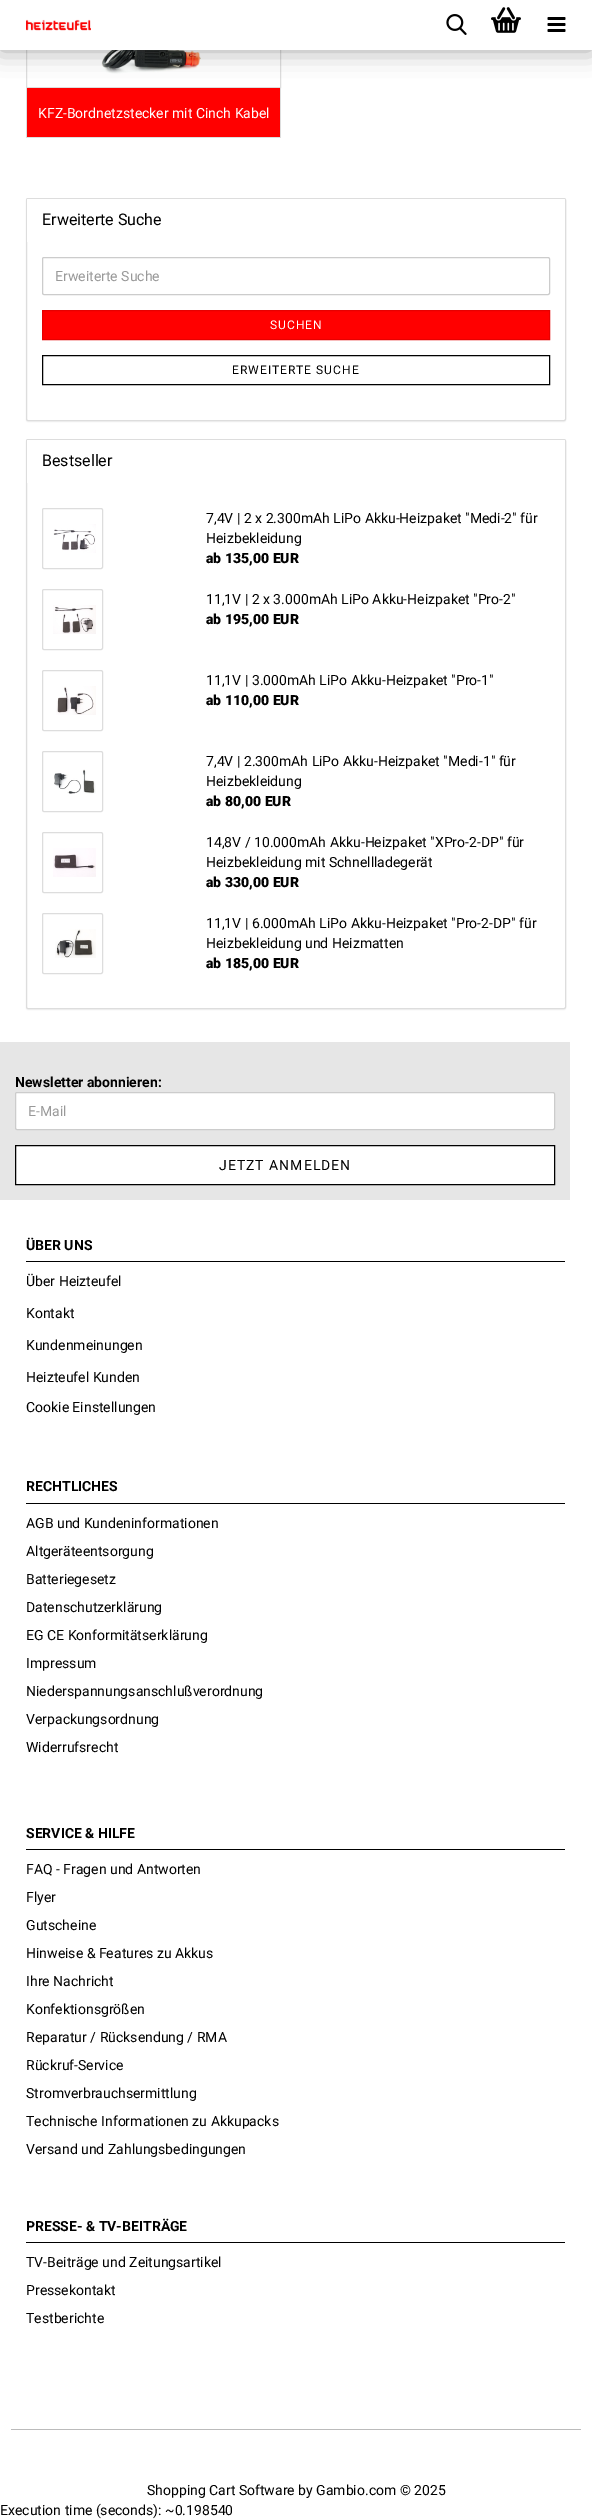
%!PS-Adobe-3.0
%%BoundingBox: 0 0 592 2520
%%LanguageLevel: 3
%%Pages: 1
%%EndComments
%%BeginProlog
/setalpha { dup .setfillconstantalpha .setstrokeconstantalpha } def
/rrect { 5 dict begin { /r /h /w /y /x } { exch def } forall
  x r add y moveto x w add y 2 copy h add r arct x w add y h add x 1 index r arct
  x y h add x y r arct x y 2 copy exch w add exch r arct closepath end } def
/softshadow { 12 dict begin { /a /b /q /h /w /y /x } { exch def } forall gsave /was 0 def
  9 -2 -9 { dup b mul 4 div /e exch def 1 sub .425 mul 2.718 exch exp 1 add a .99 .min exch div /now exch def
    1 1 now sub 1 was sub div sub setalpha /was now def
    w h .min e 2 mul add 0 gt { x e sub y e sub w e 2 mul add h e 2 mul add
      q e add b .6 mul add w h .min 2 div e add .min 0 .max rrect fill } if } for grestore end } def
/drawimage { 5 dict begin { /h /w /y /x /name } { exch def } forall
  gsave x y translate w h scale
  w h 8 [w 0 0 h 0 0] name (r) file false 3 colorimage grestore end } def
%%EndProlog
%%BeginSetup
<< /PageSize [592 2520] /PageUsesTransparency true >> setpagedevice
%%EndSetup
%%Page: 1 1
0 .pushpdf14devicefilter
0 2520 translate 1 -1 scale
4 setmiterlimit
1 setgray
0 0 592 2520 rectfill
0.867 setgray
26.5 13.5 254 74 rectstroke
(images/5.raw) 101 50 100 24 drawimage
1 0 0 setrgbcolor
27 88 253 49 rectfill
0.867 setgray
280 88 1 50 rectfill
26 137 255 1 rectfill
26 88 1 50 rectfill
0 setgray
0 0 592 50 0 12.5 0.35 softshadow
1 setgray
0 0 592 50 rectfill
(images/1.raw) 26 19 65 12 drawimage
(images/2.raw) 446 14 21 21 drawimage
(images/3.raw) 491 7 30 26 drawimage
(images/4.raw) 547 17 19 15 drawimage
0 setgray
26 199 540 223 2 0.5 0.05 softshadow
1 setgray
26.5 198.5 539 222 1.5 rrect gsave fill grestore
0.867 setgray
stroke
1 setgray
newpath 28 199 moveto 564 199 lineto 564.5 199 565 199.5 565 200 curveto 565 242 lineto 27 242 lineto 27 200 lineto 27 199.5 27.5 199 28 199 curveto closepath fill
0.8 setgray
42.5 257.5 507 37 1.5 rrect stroke
1 0 0 setrgbcolor
newpath 42.5 310.5 moveto 549.5 310.5 lineto 549.5 339.5 lineto 42.5 339.5 lineto closepath gsave fill grestore
0.902 0 0 setrgbcolor
stroke
0 setgray
42.5 355.5 507 29 rectstroke
26 440 540 570 2 0.5 0.05 softshadow
1 setgray
26.5 439.5 539 569 1.5 rrect gsave fill grestore
0.867 setgray
stroke
1 setgray
newpath 28 440 moveto 564 440 lineto 564.5 440 565 440.5 565 441 curveto 565 483 lineto 27 483 lineto 27 441 lineto 27 440.5 27.5 440 28 440 curveto closepath fill
0.867 setgray
42.5 508.5 60 60 1.5 rrect stroke
(images/6.raw) 53 524 43 29 drawimage
42.5 589.5 60 60 1.5 rrect stroke
(images/7.raw) 53 605 43 29 drawimage
42.5 670.5 60 60 1.5 rrect stroke
(images/8.raw) 56 686 40 29 drawimage
42.5 751.5 60 60 1.5 rrect stroke
(images/9.raw) 54 769 42 25 drawimage
42.5 832.5 60 60 1.5 rrect stroke
(images/10.raw) 53 848 43 29 drawimage
42.5 913.5 60 60 1.5 rrect stroke
(images/11.raw) 55 929 41 29 drawimage
0.902 setgray
0 1042 570 158 rectfill
1 setgray
15.5 1092.5 539 37 1.5 rrect gsave fill grestore
0.8 setgray
stroke
1 setgray
newpath 15.5 1145.5 moveto 554.5 1145.5 lineto 554.5 1184.5 lineto 15.5 1184.5 lineto closepath gsave fill grestore
0 setgray
stroke
0.733 setgray
11 2429 570 1 rectfill
0 setgray
26 1261 539 1 rectfill
26 1503 539 1 rectfill
26 1849 539 1 rectfill
26 2242 539 1 rectfill
/Roboto-Regular [14 0 0 -14 0 0] selectfont
1 setgray
38 118 moveto (KFZ-Bordnetzstecker mit Cinch Kabel) show
/Roboto-Regular [16 0 0 -16 0 0] selectfont
0 setgray
42 225 moveto (Erweiterte Suche) show
/Roboto-Regular [14 0 0 -14 0 0] selectfont
0.6 setgray
55 281 moveto (Erweiterte Suche) show
/Roboto-Regular [12 0 0 -12 0 0] selectfont
1 setgray
270 329 moveto 1 0 (SUCHEN) ashow
0 setgray
232 374 moveto 1 0 (ERWEITERTE SUCHE) ashow
/Roboto-Regular [16 0 0 -16 0 0] selectfont
42 466 moveto (Bestseller) show
/Roboto-Regular [14 0 0 -14 0 0] selectfont
206 523 moveto (7,4V | 2 x 2.300mAh LiPo Akku-Heizpaket "Medi-2" für) show
206 543 moveto (Heizbekleidung) show
/Roboto-Black [14 0 0 -14 0 0] selectfont
206 563 moveto (ab 135,00 EUR) show
/Roboto-Regular [14 0 0 -14 0 0] selectfont
206 604 moveto (11,1V | 2 x 3.000mAh LiPo Akku-Heizpaket "Pro-2") show
/Roboto-Black [14 0 0 -14 0 0] selectfont
206 624 moveto (ab 195,00 EUR) show
/Roboto-Regular [14 0 0 -14 0 0] selectfont
206 685 moveto (11,1V | 3.000mAh LiPo Akku-Heizpaket "Pro-1") show
/Roboto-Black [14 0 0 -14 0 0] selectfont
206 705 moveto (ab 110,00 EUR) show
/Roboto-Regular [14 0 0 -14 0 0] selectfont
206 766 moveto (7,4V | 2.300mAh LiPo Akku-Heizpaket "Medi-1" für) show
206 786 moveto (Heizbekleidung) show
/Roboto-Black [14 0 0 -14 0 0] selectfont
206 806 moveto (ab 80,00 EUR) show
/Roboto-Regular [14 0 0 -14 0 0] selectfont
206 847 moveto (14,8V / 10.000mAh Akku-Heizpaket "XPro-2-DP" für) show
206 867 moveto (Heizbekleidung mit Schnellladegerät) show
/Roboto-Black [14 0 0 -14 0 0] selectfont
206 887 moveto (ab 330,00 EUR) show
/Roboto-Regular [14 0 0 -14 0 0] selectfont
206 928 moveto (11,1V | 6.000mAh LiPo Akku-Heizpaket "Pro-2-DP" für) show
206 948 moveto (Heizbekleidung und Heizmatten) show
/Roboto-Black [14 0 0 -14 0 0] selectfont
206 968 moveto (ab 185,00 EUR) show
/Roboto-Bold [14 0 0 -14 0 0] selectfont
15 1087 moveto (Newsletter abonnieren:) show
/Roboto-Regular [14 0 0 -14 0 0] selectfont
0.6 setgray
28 1116 moveto (E-Mail) show
0 setgray
219 1170 moveto 1 0 (JETZT ANMELDEN) ashow
/Roboto-Bold [14 0 0 -14 0 0] selectfont
26 1250 moveto (ÜBER UNS) show
/Roboto-Regular [14 0 0 -14 0 0] selectfont
26 1286 moveto (Über Heizteufel) show
26 1318 moveto (Kontakt) show
26 1350 moveto (Kundenmeinungen) show
26 1382 moveto (Heizteufel Kunden) show
26 1412 moveto (Cookie Einstellungen) show
/Roboto-Bold [14 0 0 -14 0 0] selectfont
26 1491 moveto (RECHTLICHES) show
/Roboto-Regular [14 0 0 -14 0 0] selectfont
26 1528 moveto (AGB und Kundeninformationen) show
26 1556 moveto (Altgeräteentsorgung) show
26 1584 moveto (Batteriegesetz) show
26 1612 moveto (Datenschutzerklärung) show
26 1640 moveto (EG CE Konformitätserklärung) show
26 1668 moveto (Impressum) show
26 1696 moveto (Niederspannungsanschlußverordnung) show
26 1724 moveto (Verpackungsordnung) show
26 1752 moveto (Widerrufsrecht) show
/Roboto-Bold [14 0 0 -14 0 0] selectfont
26 1838 moveto (SERVICE & HILFE) show
/Roboto-Regular [14 0 0 -14 0 0] selectfont
26 1874 moveto (FAQ - Fragen und Antworten) show
26 1902 moveto (Flyer) show
26 1930 moveto (Gutscheine) show
26 1958 moveto (Hinweise & Features zu Akkus) show
26 1986 moveto (Ihre Nachricht) show
26 2014 moveto (Konfektionsgrößen) show
26 2042 moveto (Reparatur / Rücksendung / RMA) show
26 2070 moveto (Rückruf-Service) show
26 2098 moveto (Stromverbrauchsermittlung) show
26 2126 moveto (Technische Informationen zu Akkupacks) show
26 2154 moveto (Versand und Zahlungsbedingungen) show
/Roboto-Bold [14 0 0 -14 0 0] selectfont
26 2231 moveto (PRESSE- & TV-BEITRÄGE) show
/Roboto-Regular [14 0 0 -14 0 0] selectfont
26 2267 moveto (TV-Beiträge und Zeitungsartikel) show
26 2295 moveto (Pressekontakt) show
26 2323 moveto (Testberichte) show
147 2495 moveto (Shopping Cart Software by Gambio.com © 2025) show
0 2515 moveto (Execution time \(seconds\): ~0.198540) show
.poppdf14devicefilter showpage
%%EOF
